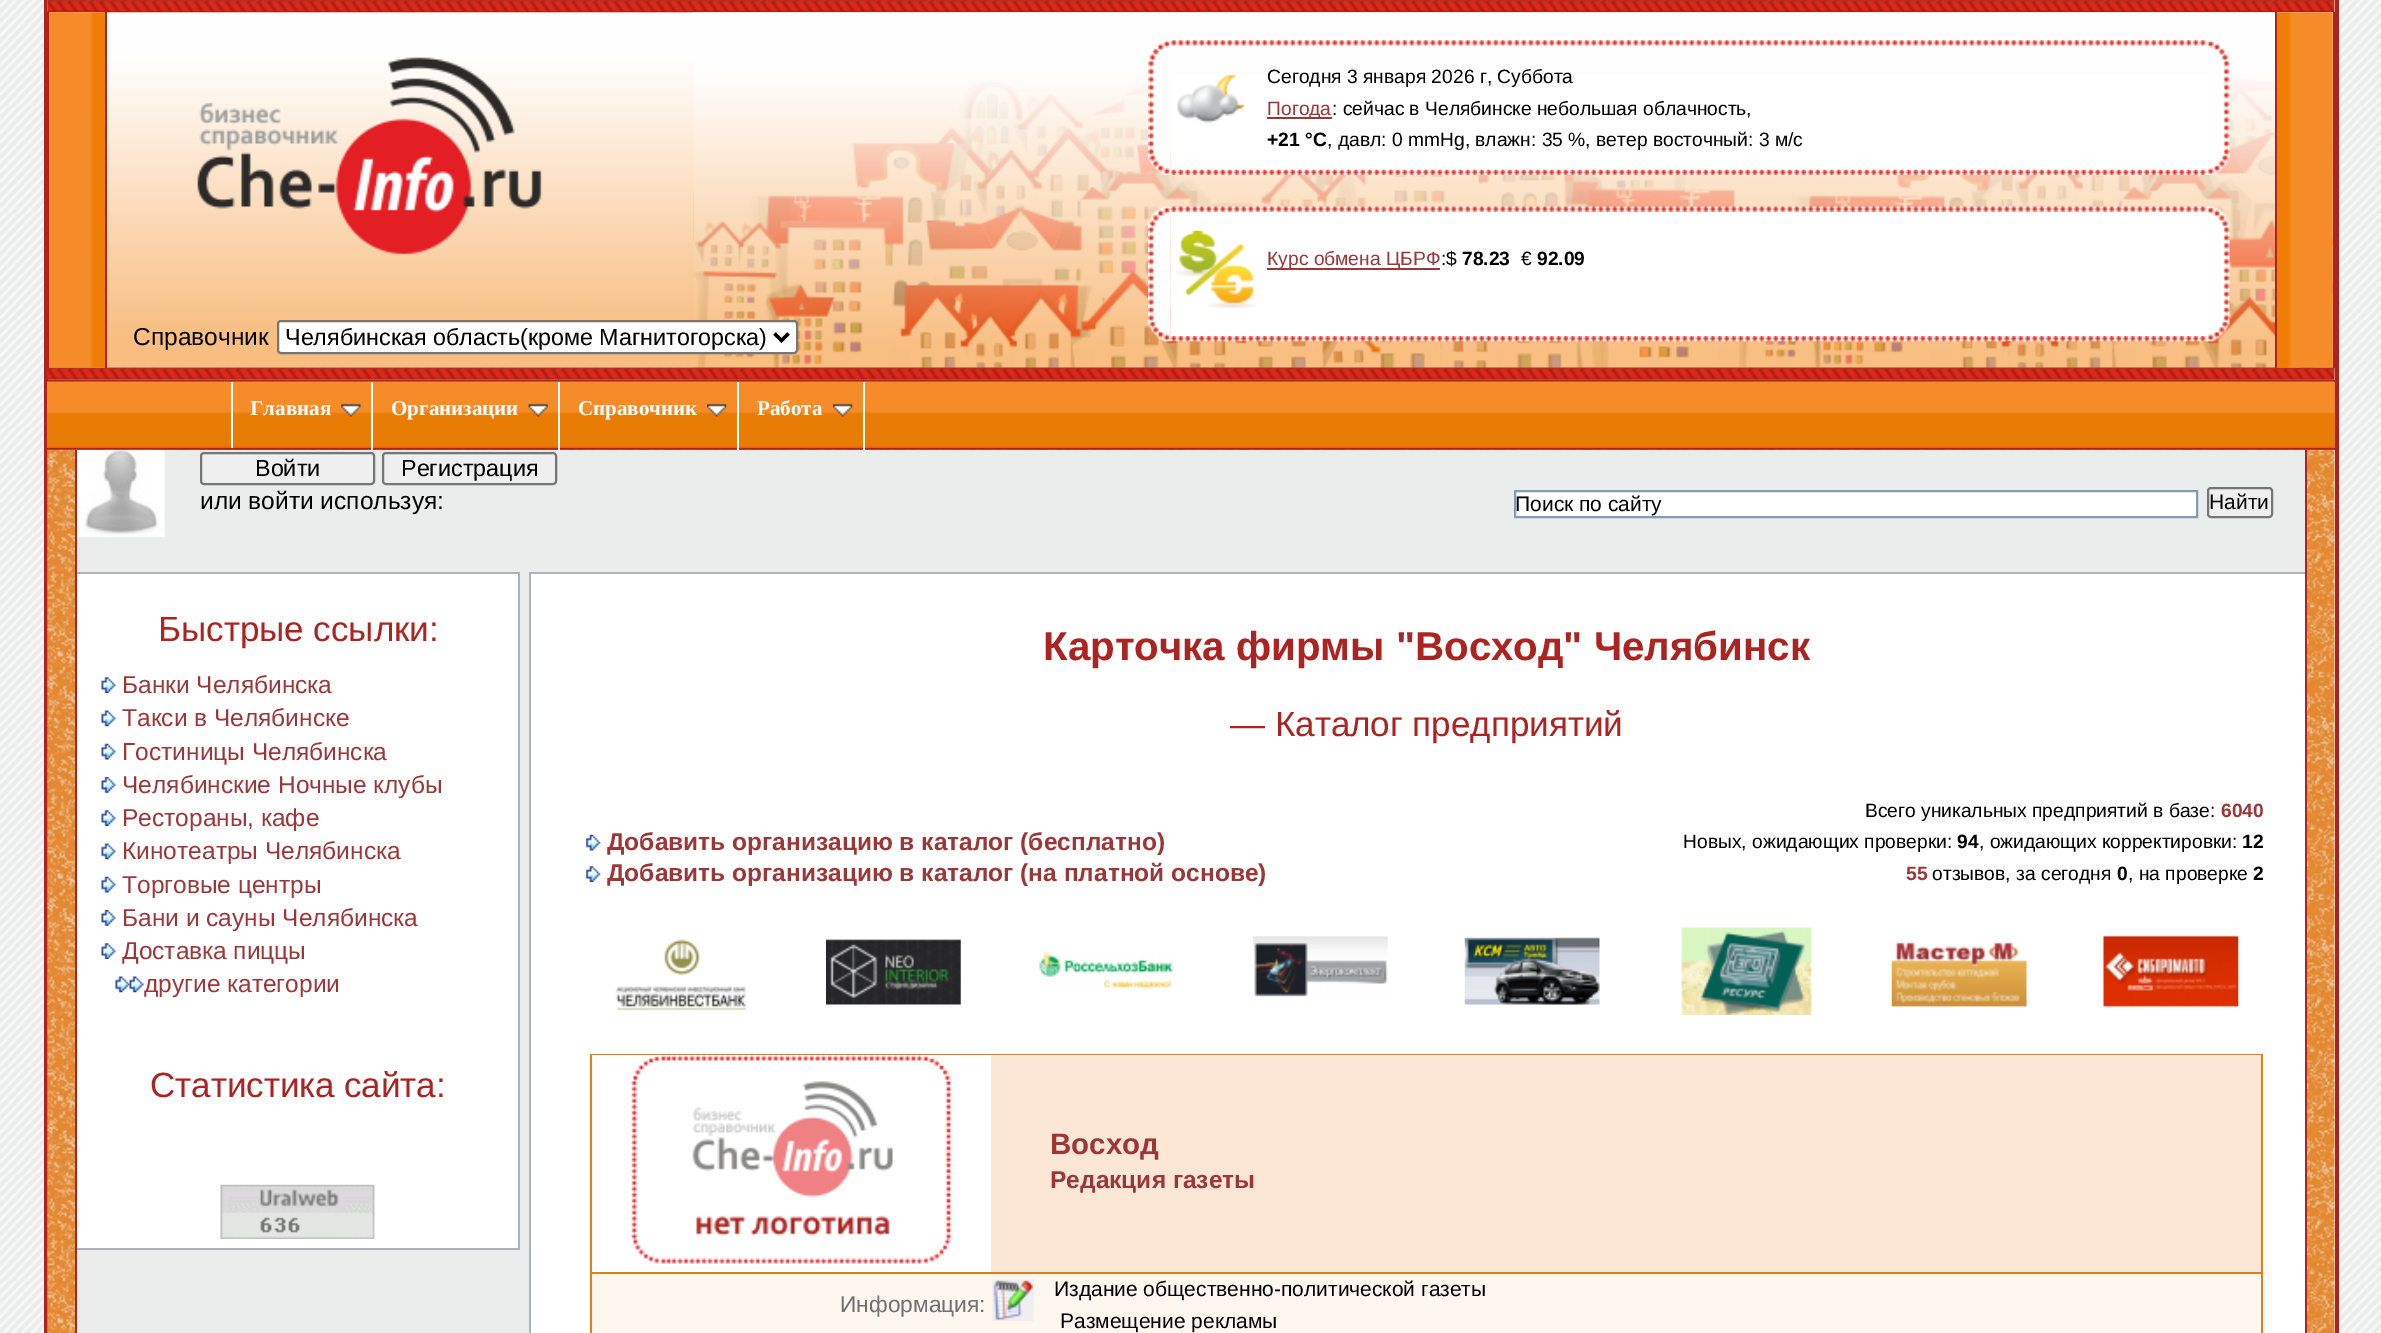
%!PS-Adobe-3.0
%%BoundingBox: 0 0 2381 1333
%%LanguageLevel: 3
%%Pages: 1
%%EndComments
%%BeginProlog
/rrect { 5 dict begin { /r /h /w /y /x } { exch def } forall
  x r add y moveto x w add y 2 copy h add r arct x w add y h add x 1 index r arct
  x y h add x y r arct x y 2 copy exch w add exch r arct closepath end } def
/drawimage { 5 dict begin { /h /w /y /x /name } { exch def } forall
  gsave x y translate w h scale
  w h 8 [w 0 0 h 0 0] name (r) file false 3 colorimage grestore end } def
%%EndProlog
%%BeginSetup
<< /PageSize [2381 1333] >> setpagedevice
%%EndSetup
%%Page: 1 1
0 1333 translate 1 -1 scale
4 setmiterlimit
1 setgray
0 0 2381 1333 rectfill
(images/1.raw) 0 0 2381 1333 drawimage
0.671 0.141 0.129 setrgbcolor
2335 0 4 1333 rectfill
44 0 4 1333 rectfill
(images/2.raw) 47 0 2288 368 drawimage
(images/3.raw) 47 0 2288 13 drawimage
(images/5.raw) 693 12 1642 368 drawimage
(images/18.raw) 47 367 2288 13 drawimage
(images/4.raw) 49 12 56 356 drawimage
105 12 2 356 rectfill
47 12 2 356 rectfill
(images/6.raw) 1148 40 23 135 drawimage
(images/7.raw) 1170 40 1037 6 drawimage
(images/8.raw) 2206 40 24 135 drawimage
1 setgray
1171 74 1036 96 rectfill
0.616 0.212 0.212 setrgbcolor
1267 117 65 2 rectfill
(images/9.raw) 1177 74 68 49 drawimage
(images/10.raw) 1170 169 1037 6 drawimage
(images/11.raw) 1148 206 23 136 drawimage
(images/12.raw) 1170 206 1037 6 drawimage
(images/13.raw) 2206 206 24 136 drawimage
1 setgray
1171 212 1036 124 rectfill
(images/14.raw) 1170 231 87 78 drawimage
0.616 0.212 0.212 setrgbcolor
1267 268 173 2 rectfill
(images/15.raw) 1170 336 1037 6 drawimage
(images/16.raw) 2277 12 56 356 drawimage
0.671 0.141 0.129 setrgbcolor
2333 12 2 356 rectfill
2275 12 2 356 rectfill
(images/17.raw) 197 57 345 198 drawimage
1 setgray
278 321 519 32 3 rrect gsave fill grestore
0.463 setgray
2 setlinewidth
stroke
0 setgray
3.5 setlinewidth
newpath 774.5 333.5 moveto 781.5 340.5 lineto 788.5 333.5 lineto stroke
0.898 0.49 0.106 setrgbcolor
47 382 2288 66 rectfill
0.671 0.141 0.129 setrgbcolor
47 380 2288 2 rectfill
47 448 2288 2 rectfill
(images/19.raw) 47 381 2288 67 drawimage
1 setgray
231 382 2 66 rectfill
(images/23.raw) 47 449 2288 884 drawimage
371 382 2 68 rectfill
(images/20.raw) 341 403 20 14 drawimage
558 382 2 68 rectfill
(images/21.raw) 528 403 20 14 drawimage
737 382 2 68 rectfill
(images/22.raw) 707 403 20 14 drawimage
863 382 2 68 rectfill
(images/22.raw) 833 403 20 14 drawimage
0.922 0.925 0.925 setrgbcolor
77 450 2228 883 rectfill
0.671 0.141 0.129 setrgbcolor
2305 450 2 883 rectfill
75 450 2 883 rectfill
(images/24.raw) 77 449 88 89 drawimage
0.937 setgray
201 453 173 31 3 rrect gsave fill grestore
0.463 setgray
2 setlinewidth
stroke
0.937 setgray
383 453 173 31 3 rrect gsave fill grestore
0.463 setgray
stroke
1 setgray
newpath 1515 491 moveto 2197 491 lineto 2197 517 lineto 1515 517 lineto closepath gsave fill grestore
0.498 0.616 0.725 setrgbcolor
stroke
0.937 setgray
2208 488 64 29 3 rrect gsave fill grestore
0.463 setgray
stroke
1 setgray
77 574 441 674 rectfill
0.675 0.702 0.722 setrgbcolor
77 572 443 2 rectfill
518 572 2 678 rectfill
77 1248 443 2 rectfill
(images/25.raw) 101 677 15 16 drawimage
(images/26.raw) 101 710 15 17 drawimage
(images/27.raw) 101 743 15 17 drawimage
(images/28.raw) 101 777 15 16 drawimage
(images/25.raw) 101 810 15 16 drawimage
(images/26.raw) 101 843 15 17 drawimage
(images/27.raw) 101 876 15 17 drawimage
(images/28.raw) 101 910 15 16 drawimage
(images/25.raw) 101 943 15 16 drawimage
(images/29.raw) 115 976 15 17 drawimage
(images/30.raw) 129 976 15 17 drawimage
(images/31.raw) 220 1184 155 55 drawimage
1 setgray
531 574 1774 759 rectfill
0.675 0.702 0.722 setrgbcolor
529 572 1776 2 rectfill
529 572 2 761 rectfill
(images/32.raw) 586 834 15 17 drawimage
(images/33.raw) 586 866 15 16 drawimage
(images/34.raw) 615 939 133 72 drawimage
(images/35.raw) 826 939 135 66 drawimage
(images/36.raw) 1039 951 134 39 drawimage
(images/37.raw) 1253 936 135 61 drawimage
(images/38.raw) 1464 937 136 68 drawimage
(images/39.raw) 1681 927 131 88 drawimage
(images/40.raw) 1891 941 136 66 drawimage
(images/41.raw) 2103 935 136 72 drawimage
0.898 0.49 0.106 setrgbcolor
590 1054 1673 279 rectfill
0.988 0.906 0.839 setrgbcolor
991 1055 1270 217 rectfill
1 setgray
592 1055 399 217 rectfill
(images/42.raw) 631 1055 321 209 drawimage
0.996 0.969 0.937 setrgbcolor
592 1274 1669 59 rectfill
(images/43.raw) 992 1279 42 42 drawimage
/LiberationSans-Regular [19.25 0 0 -19.25 0 0] selectfont
0 setgray
1267 83 moveto (Сегодня 3 января 2026 г, Суббота) show
0.616 0.212 0.212 setrgbcolor
1267 115 moveto (Погода) show
0 setgray
1332 115 moveto (: сейчас в Челябинске небольшая облачность,) show
/LiberationSans-Bold [19.25 0 0 -19.25 0 0] selectfont
1267 146 moveto (+21 °C) show
/LiberationSans-Regular [19.25 0 0 -19.25 0 0] selectfont
1327 146 moveto (, давл: 0 mmHg, влажн: 35 %, ветер восточный: 3 м/с) show
0.616 0.212 0.212 setrgbcolor
1267 265 moveto (Курс обмена ЦБРФ) show
0 setgray
1441 265 moveto (:$) show
/LiberationSans-Bold [19.25 0 0 -19.25 0 0] selectfont
1462 265 moveto (78.23) show
/LiberationSans-Regular [19.25 0 0 -19.25 0 0] selectfont
1521 265 moveto (€) show
/LiberationSans-Bold [19.25 0 0 -19.25 0 0] selectfont
1537 265 moveto (92.09) show
/LiberationSans-Regular [24.5 0 0 -24.5 0 0] selectfont
133 345 moveto (Справочник) show
/LiberationSans-Regular [23.3 0 0 -23.3 0 0] selectfont
285 345 moveto (Челябинская область\(кроме Магнитогорска\)) show
/LiberationSerif-Bold [21 0 0 -21 0 0] selectfont
1 setgray
250 415 moveto (Главная) show
391 415 moveto (Организации) show
578 415 moveto (Справочник) show
757 415 moveto (Работа) show
/LiberationSans-Regular [23.3 0 0 -23.3 0 0] selectfont
0 setgray
255 476 moveto (Войти) show
401 476 moveto (Регистрация) show
/LiberationSans-Regular [24.5 0 0 -24.5 0 0] selectfont
200 509 moveto (или войти используя:) show
/LiberationSans-Regular [21 0 0 -21 0 0] selectfont
1515 511 moveto (Поиск по сайту) show
2209 509 moveto (Найти) show
/LiberationSans-Regular [35 0 0 -35 0 0] selectfont
0.671 0.141 0.129 setrgbcolor
158 641 moveto (Быстрые ссылки:) show
/LiberationSans-Regular [24.5 0 0 -24.5 0 0] selectfont
0.616 0.212 0.212 setrgbcolor
122 693 moveto (Банки Челябинска) show
122 726 moveto (Такси в Челябинске) show
122 760 moveto (Гостиницы Челябинска) show
122 793 moveto (Челябинские Ночные клубы) show
122 826 moveto (Рестораны, кафе) show
122 859 moveto (Кинотеатры Челябинска) show
122 893 moveto (Торговые центры) show
122 926 moveto (Бани и сауны Челябинска) show
122 959 moveto (Доставка пиццы) show
144 992 moveto (другие категории) show
/LiberationSans-Regular [35 0 0 -35 0 0] selectfont
0.671 0.141 0.129 setrgbcolor
150 1097 moveto (Статистика сайта:) show
/LiberationSans-Bold [40.25 0 0 -40.25 0 0] selectfont
1043 660 moveto (Карточка фирмы "Восход" Челябинск) show
/LiberationSans-Regular [35 0 0 -35 0 0] selectfont
1230 736 moveto (— Каталог предприятий) show
/LiberationSans-Bold [24.5 0 0 -24.5 0 0] selectfont
0.616 0.212 0.212 setrgbcolor
607 850 moveto (Добавить организацию в каталог \(бесплатно\)) show
607 881 moveto (Добавить организацию в каталог \(на платной основе\)) show
/LiberationSans-Regular [19.25 0 0 -19.25 0 0] selectfont
0 setgray
1865 817 moveto (Всего уникальных предприятий в базе:) show
/LiberationSans-Bold [19.25 0 0 -19.25 0 0] selectfont
0.616 0.212 0.212 setrgbcolor
2221 817 moveto (6040) show
/LiberationSans-Regular [19.25 0 0 -19.25 0 0] selectfont
0 setgray
1683 848 moveto (Новых, ожидающих проверки:) show
/LiberationSans-Bold [19.25 0 0 -19.25 0 0] selectfont
1957 848 moveto (94) show
/LiberationSans-Regular [19.25 0 0 -19.25 0 0] selectfont
1979 848 moveto (, ожидающих корректировки:) show
/LiberationSans-Bold [19.25 0 0 -19.25 0 0] selectfont
2242 848 moveto (12) show
0.616 0.212 0.212 setrgbcolor
1906 880 moveto (55) show
/LiberationSans-Regular [19.25 0 0 -19.25 0 0] selectfont
0 setgray
1932 880 moveto (отзывов, за сегодня) show
/LiberationSans-Bold [19.25 0 0 -19.25 0 0] selectfont
2117 880 moveto (0) show
/LiberationSans-Regular [19.25 0 0 -19.25 0 0] selectfont
2128 880 moveto (, на проверке) show
/LiberationSans-Bold [19.25 0 0 -19.25 0 0] selectfont
2253 880 moveto (2) show
/LiberationSans-Bold [29.5 0 0 -29.5 0 0] selectfont
0.616 0.212 0.212 setrgbcolor
1050 1154 moveto (Восход) show
/LiberationSans-Bold [24.5 0 0 -24.5 0 0] selectfont
1050 1188 moveto (Редакция газеты) show
/LiberationSans-Regular [22.75 0 0 -22.75 0 0] selectfont
0.443 setgray
840 1312 moveto (Информация:) show
/LiberationSans-Regular [21 0 0 -21 0 0] selectfont
0 setgray
1054 1296 moveto (Издание общественно-политической газеты) show
1060 1328 moveto (Размещение рекламы) show
showpage
%%EOF
